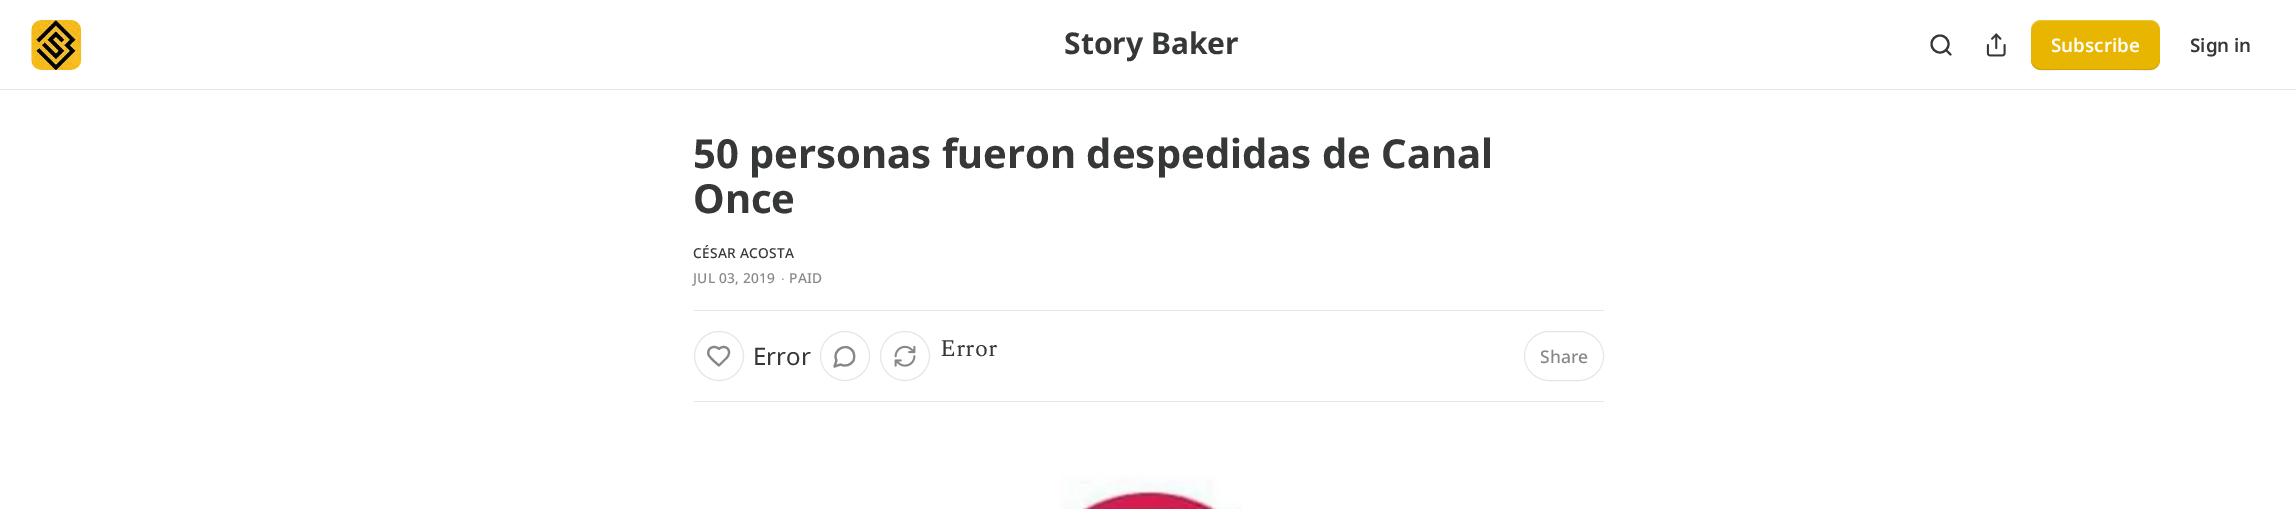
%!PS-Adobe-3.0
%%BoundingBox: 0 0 2296 509
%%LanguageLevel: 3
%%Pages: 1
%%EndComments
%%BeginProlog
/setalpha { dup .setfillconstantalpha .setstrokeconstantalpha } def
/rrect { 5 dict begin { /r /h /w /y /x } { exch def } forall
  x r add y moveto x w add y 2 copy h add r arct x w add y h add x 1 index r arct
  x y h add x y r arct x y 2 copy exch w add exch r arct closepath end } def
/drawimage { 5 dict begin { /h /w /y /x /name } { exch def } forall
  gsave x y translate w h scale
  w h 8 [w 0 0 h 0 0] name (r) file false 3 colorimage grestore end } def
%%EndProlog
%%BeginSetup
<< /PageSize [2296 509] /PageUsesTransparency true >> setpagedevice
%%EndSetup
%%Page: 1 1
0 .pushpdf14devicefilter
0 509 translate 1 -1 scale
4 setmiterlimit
1 setgray
0 0 2296 509 rectfill
0.902 setgray
0 89 2296 1 rectfill
(images/1.raw) 31 20 51 50 drawimage
0.212 0.216 0.216 setrgbcolor
2.1 setlinewidth
newpath 1940 44 8.5 0 360 arc closepath stroke
1 setlinecap
1 setlinejoin
newpath 1950.5 54.5 moveto 1946 50 lineto stroke
(images/2.raw) 1986 33 20 24 drawimage
0.91 0.71 0 setrgbcolor
2031 20 129 50 10 rrect fill
0.1 setalpha
0 setgray
newpath 2031 59 moveto 2031 74 2049 70 2059 70 curveto 2132 70 lineto 2142 70 2160 74 2160 59 curveto 2160 64 2156 69 2150 69 curveto 2041 69 lineto 2036 69 2031 64 2031 59 curveto closepath fill
0.2 setalpha
1 setgray
newpath 2041 21 moveto 2150 21 lineto 2156 21 2160 26 2160 31 curveto 2160 16 2142 20 2132 20 curveto 2059 20 lineto 2049 20 2031 16 2031 31 curveto 2031 26 2036 21 2041 21 curveto closepath fill
1 setalpha
0.902 setgray
694 310 910 1 rectfill
694 401 910 1 rectfill
1 setlinewidth
0 setlinecap
0 setlinejoin
newpath 719 356 24.5 0 360 arc closepath stroke
0.525 0.529 0.529 setrgbcolor
2.1 setlinewidth
1 setlinecap
1 setlinejoin
newpath 726 358.5 moveto 734 351 725 343 719 349 curveto 714.5 344.5 706.5 348 708.5 354.5 curveto 709.5 357.5 716 363 719 365.5 curveto closepath stroke
0.902 setgray
1 setlinewidth
0 setlinecap
0 setlinejoin
newpath 845 356 24.5 0 360 arc closepath stroke
0.525 0.529 0.529 setrgbcolor
2.1 setlinewidth
1 setlinecap
1 setlinejoin
newpath 840.5 364.5 moveto 845.5 367 851 365 853.5 360.5 curveto 854.5 358 854.5 355 853.5 352.5 curveto 848.5 341 831 349.5 836.5 360.5 curveto 834.5 366.5 lineto closepath stroke
0.902 setgray
1 setlinewidth
0 setlinecap
0 setlinejoin
newpath 905 356 24.5 0 360 arc closepath stroke
(images/3.raw) 894 345 22 22 drawimage
1524.5 331.5 79 49 24.5 rrect stroke
(images/4.raw) 1060 474 182 35 drawimage
/NotoSans-Bold [30 0 0 -30 0 0] selectfont
0.212 0.216 0.216 setrgbcolor
1064 54 moveto (Story Baker) show
/NotoSans-SemiBold [18.75 0 0 -18.75 0 0] selectfont
1 setgray
2051 52 moveto (Subscribe) show
0.212 0.216 0.216 setrgbcolor
2190 52 moveto (Sign in) show
/NotoSans-Bold [40 0 0 -40 0 0] selectfont
693 168 moveto (50 personas fueron despedidas de Canal) show
693 213 moveto (Once) show
/NotoSans-Medium [13.75 0 0 -13.75 0 0] selectfont
693 258 moveto 0.25 0 (CÉSAR ACOSTA) ashow
0.525 0.529 0.529 setrgbcolor
693 283 moveto 0.25 0 (JUL 03, 2019) ashow
/LiberationSans-Regular [13.75 0 0 -13.75 0 0] selectfont
781 283 moveto 0.25 0 (∙) ashow
/NotoSans-Medium [13.75 0 0 -13.75 0 0] selectfont
789 283 moveto 0.25 0 (PAID) ashow
/NotoSans-Regular [24 0 0 -24 0 0] selectfont
0.212 0.216 0.216 setrgbcolor
753 365 moveto (Error) show
/Spectral-Regular [24 0 0 -24 0 0] selectfont
940 356 moveto (Error) show
/NotoSans-Medium [17.5 0 0 -17.5 0 0] selectfont
0.525 0.529 0.529 setrgbcolor
1540 363 moveto (Share) show
.poppdf14devicefilter showpage
%%EOF
